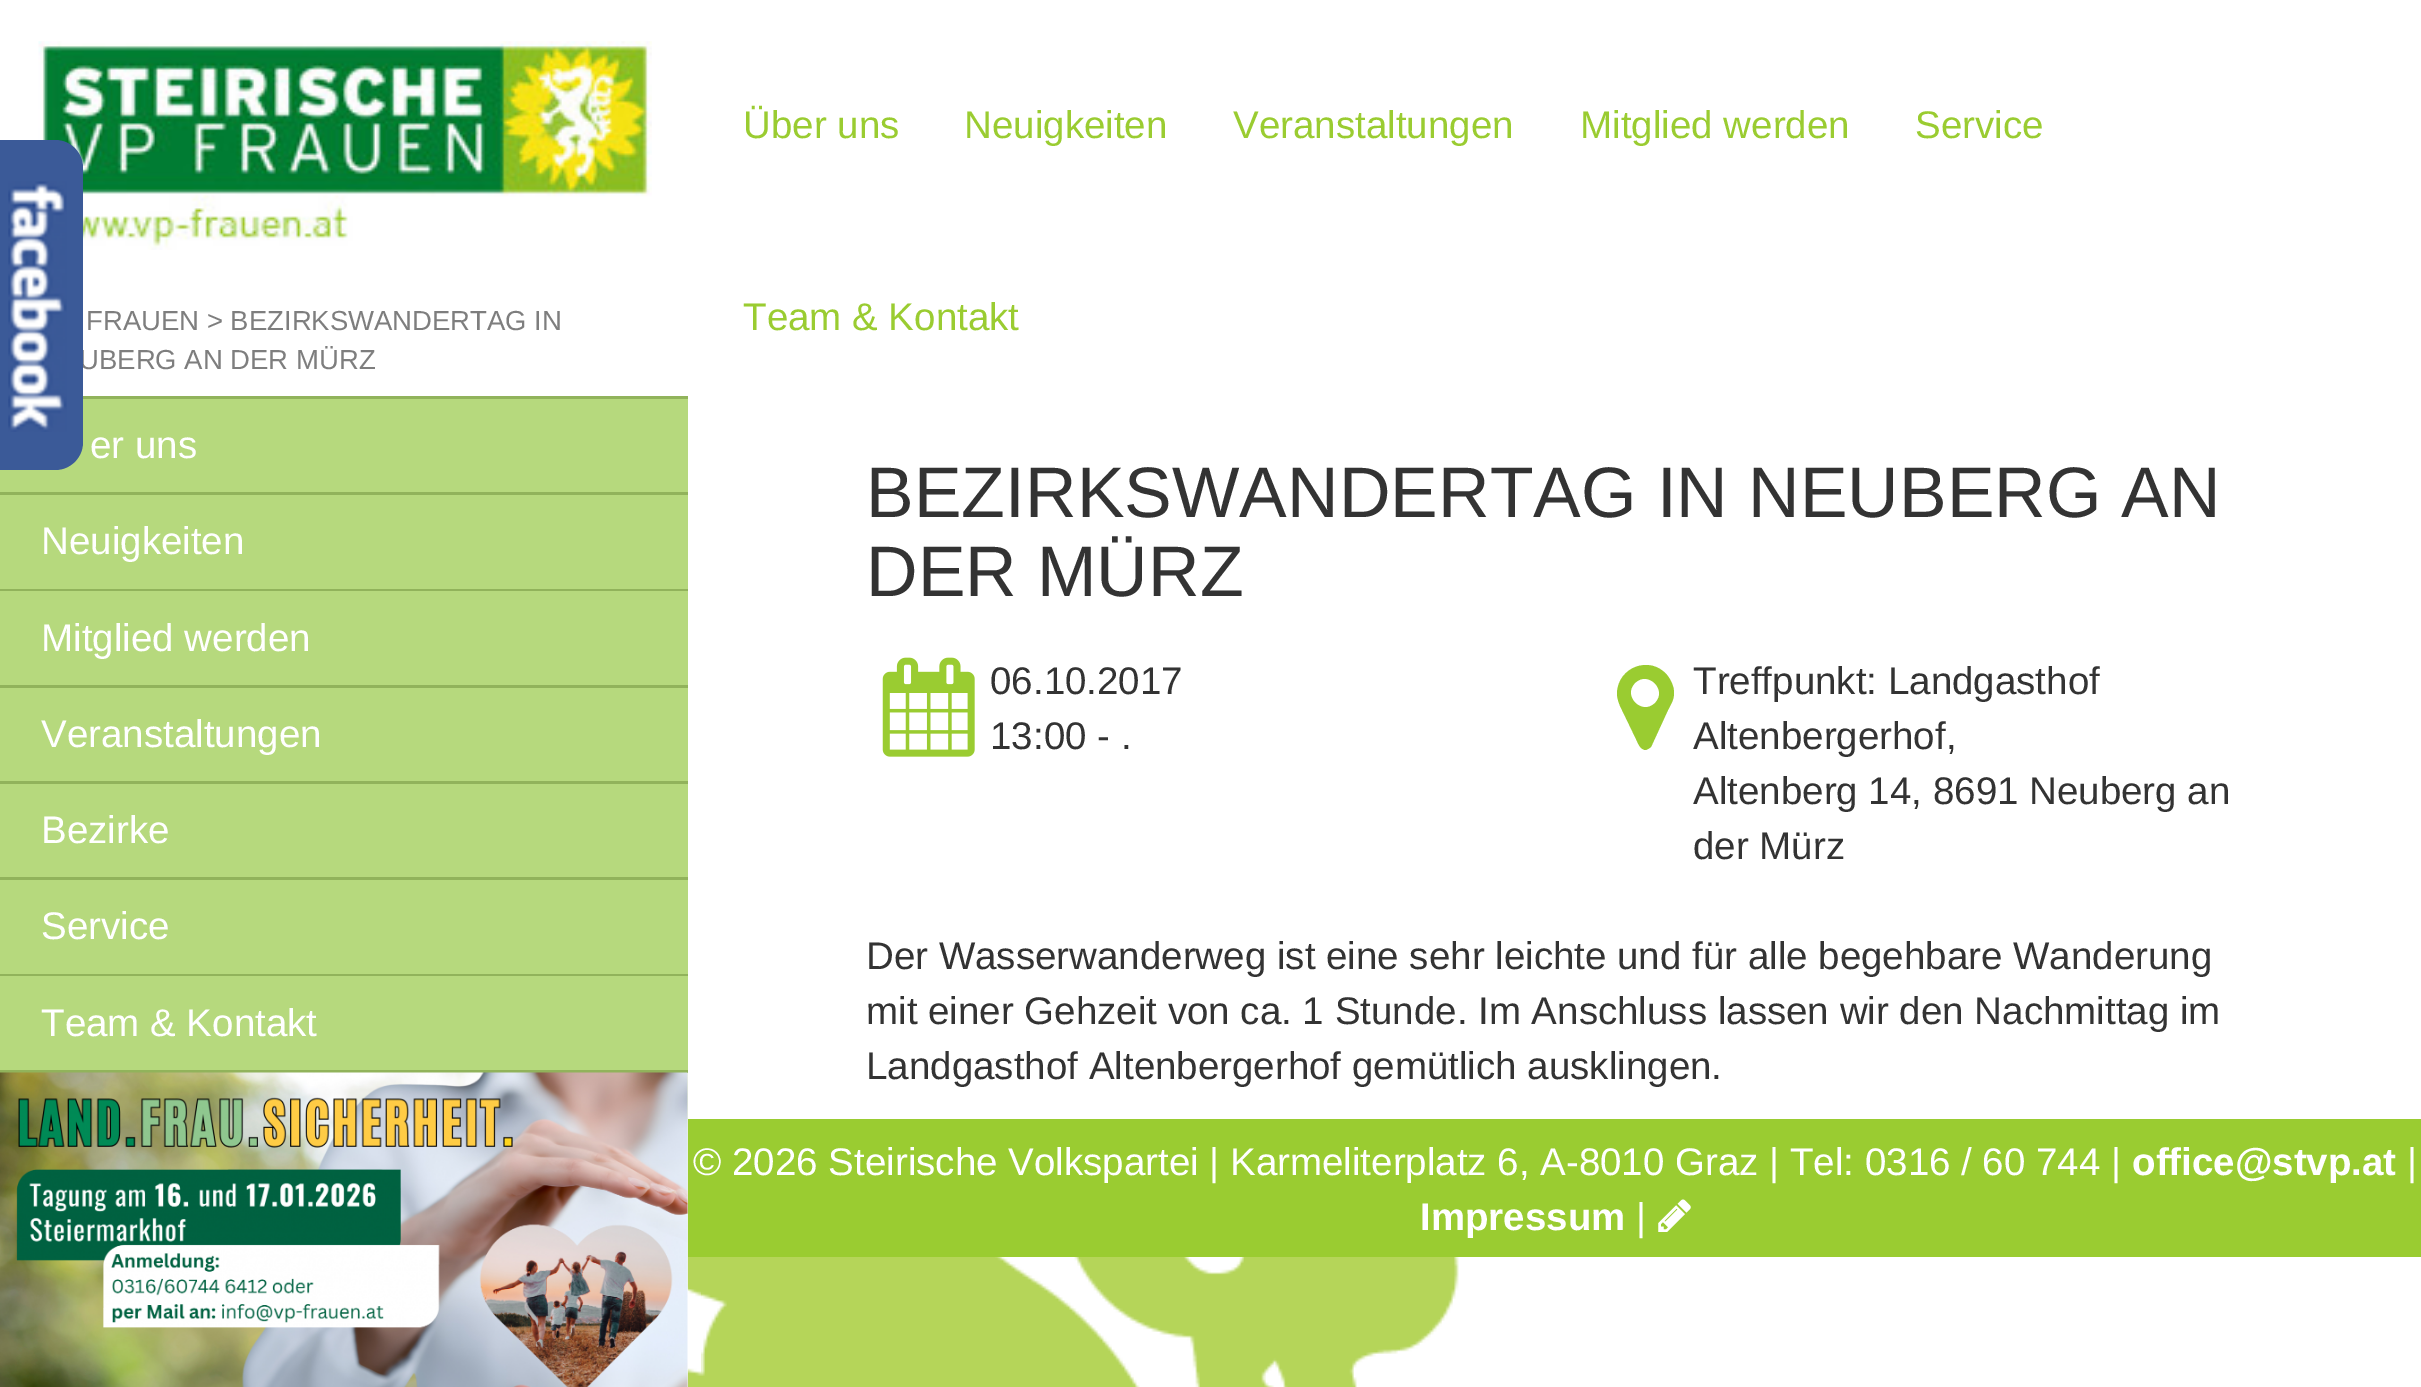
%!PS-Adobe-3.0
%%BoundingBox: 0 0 2421 1387
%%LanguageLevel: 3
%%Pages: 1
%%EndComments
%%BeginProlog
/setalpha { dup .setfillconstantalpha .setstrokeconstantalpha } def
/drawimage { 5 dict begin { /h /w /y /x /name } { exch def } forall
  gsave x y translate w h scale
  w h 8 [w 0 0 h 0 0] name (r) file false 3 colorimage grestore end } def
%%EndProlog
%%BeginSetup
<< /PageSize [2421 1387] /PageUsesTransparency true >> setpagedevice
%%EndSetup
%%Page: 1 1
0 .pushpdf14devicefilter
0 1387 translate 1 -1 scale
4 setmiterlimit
1 setgray
0 0 2421 1387 rectfill
(images/6.raw) 687 1073 838 314 drawimage
0.8 setalpha
687 1073 1 314 rectfill
1 setalpha
(images/2.raw) 38 41 614 209 drawimage
0.569 0.702 0.357 setrgbcolor
0 1070 688 3 rectfill
83 396 605 3 rectfill
0.714 0.851 0.49 setrgbcolor
0 399 688 93 rectfill
0.569 0.702 0.357 setrgbcolor
0 492 688 3 rectfill
0.714 0.851 0.49 setrgbcolor
0 495 688 94 rectfill
0.569 0.702 0.357 setrgbcolor
0 589 688 2 rectfill
0.714 0.851 0.49 setrgbcolor
0 591 688 94 rectfill
0.569 0.702 0.357 setrgbcolor
0 685 688 3 rectfill
0.714 0.851 0.49 setrgbcolor
0 688 688 93 rectfill
0.569 0.702 0.357 setrgbcolor
0 781 688 3 rectfill
0.714 0.851 0.49 setrgbcolor
0 784 688 93 rectfill
0.569 0.702 0.357 setrgbcolor
0 877 688 3 rectfill
0.714 0.851 0.49 setrgbcolor
0 880 688 94 rectfill
0.569 0.702 0.357 setrgbcolor
0 974 688 2 rectfill
0.714 0.851 0.49 setrgbcolor
0 976 688 94 rectfill
(images/3.raw) 0 1072 688 315 drawimage
1 setgray
688 1073 748 46 rectfill
(images/4.raw) 882 657 93 100 drawimage
0.604 0.8 0.192 setrgbcolor
newpath 1655 703 moveto 1668 690 1648 670 1635 683 curveto 1622 696 1642 716 1655 703 curveto closepath 1674 693 moveto 1674 700 1671 704 1668 710 curveto 1651 747 lineto 1650 748 1648 749 1646 750 curveto 1640 750 1638 743 1636 739 curveto 1622 710 lineto 1619 704 1617 699 1617 693 curveto 1618 667 1650 655 1667 675 curveto 1671 680 1674 686 1674 693 curveto closepath fill
688 1119 1733 138 rectfill
(images/5.raw) 1658 1199 33 33 drawimage
/LiberationSans-Regular [27.5 0 0 -27.5 0 0] selectfont
0.494 setgray
86 330 moveto (FRAUEN > BEZIRKSWANDERTAG IN) show
79 369 moveto (UBERG AN DER MÜRZ) show
0.231 0.353 0.596 setrgbcolor
newpath -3 140 moveto 55 140 lineto 70.5 140 83 152.5 83 168 curveto 83 442 lineto 83 457.5 70.5 470 55 470 curveto -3 470 lineto closepath fill
(images/1.raw) 8 181 59 251 drawimage
/LiberationSans-Regular [38.5 0 0 -38.5 0 0] selectfont
1 setgray
90 458 moveto (er uns) show
41 554 moveto (Neuigkeiten) show
41 651 moveto (Mitglied werden) show
41 747 moveto (Veranstaltungen) show
41 843 moveto (Bezirke) show
41 939 moveto (Service) show
41 1036 moveto (Team & Kontakt) show
0.604 0.8 0.192 setrgbcolor
743 138 moveto (Über uns) show
964 138 moveto (Neuigkeiten) show
1233 138 moveto (Veranstaltungen) show
1580 138 moveto (Mitglied werden) show
1915 138 moveto (Service) show
743 330 moveto (Team & Kontakt) show
/LiberationSans-Regular [71.5 0 0 -71.5 0 0] selectfont
0.2 setgray
866 517 moveto (BEZIRKSWANDERTAG IN NEUBERG AN) show
866 596 moveto (DER MÜRZ) show
/LiberationSans-Regular [38.5 0 0 -38.5 0 0] selectfont
990 694 moveto (06.10.2017) show
990 749 moveto (13:00 - .) show
1693 694 moveto (Treffpunkt: Landgasthof) show
1693 749 moveto (Altenbergerhof,) show
1693 804 moveto (Altenberg 14, 8691 Neuberg an) show
1693 859 moveto (der Mürz) show
866 969 moveto (Der Wasserwanderweg ist eine sehr leichte und für alle begehbare Wanderung) show
866 1024 moveto (mit einer Gehzeit von ca. 1 Stunde. Im Anschluss lassen wir den Nachmittag im) show
866 1079 moveto (Landgasthof Altenbergerhof gemütlich ausklingen.) show
1 setgray
693 1175 moveto (© 2026 Steirische Volkspartei | Karmeliterplatz 6, A-8010 Graz | Tel: 0316 / 60 744 |) show
/LiberationSans-Bold [38.5 0 0 -38.5 0 0] selectfont
2132 1175 moveto (office@stvp.at) show
/LiberationSans-Regular [38.5 0 0 -38.5 0 0] selectfont
2407 1175 moveto (|) show
/LiberationSans-Bold [38.5 0 0 -38.5 0 0] selectfont
1420 1230 moveto (Impressum) show
/LiberationSans-Regular [38.5 0 0 -38.5 0 0] selectfont
1636 1230 moveto (|) show
.poppdf14devicefilter showpage
%%EOF
